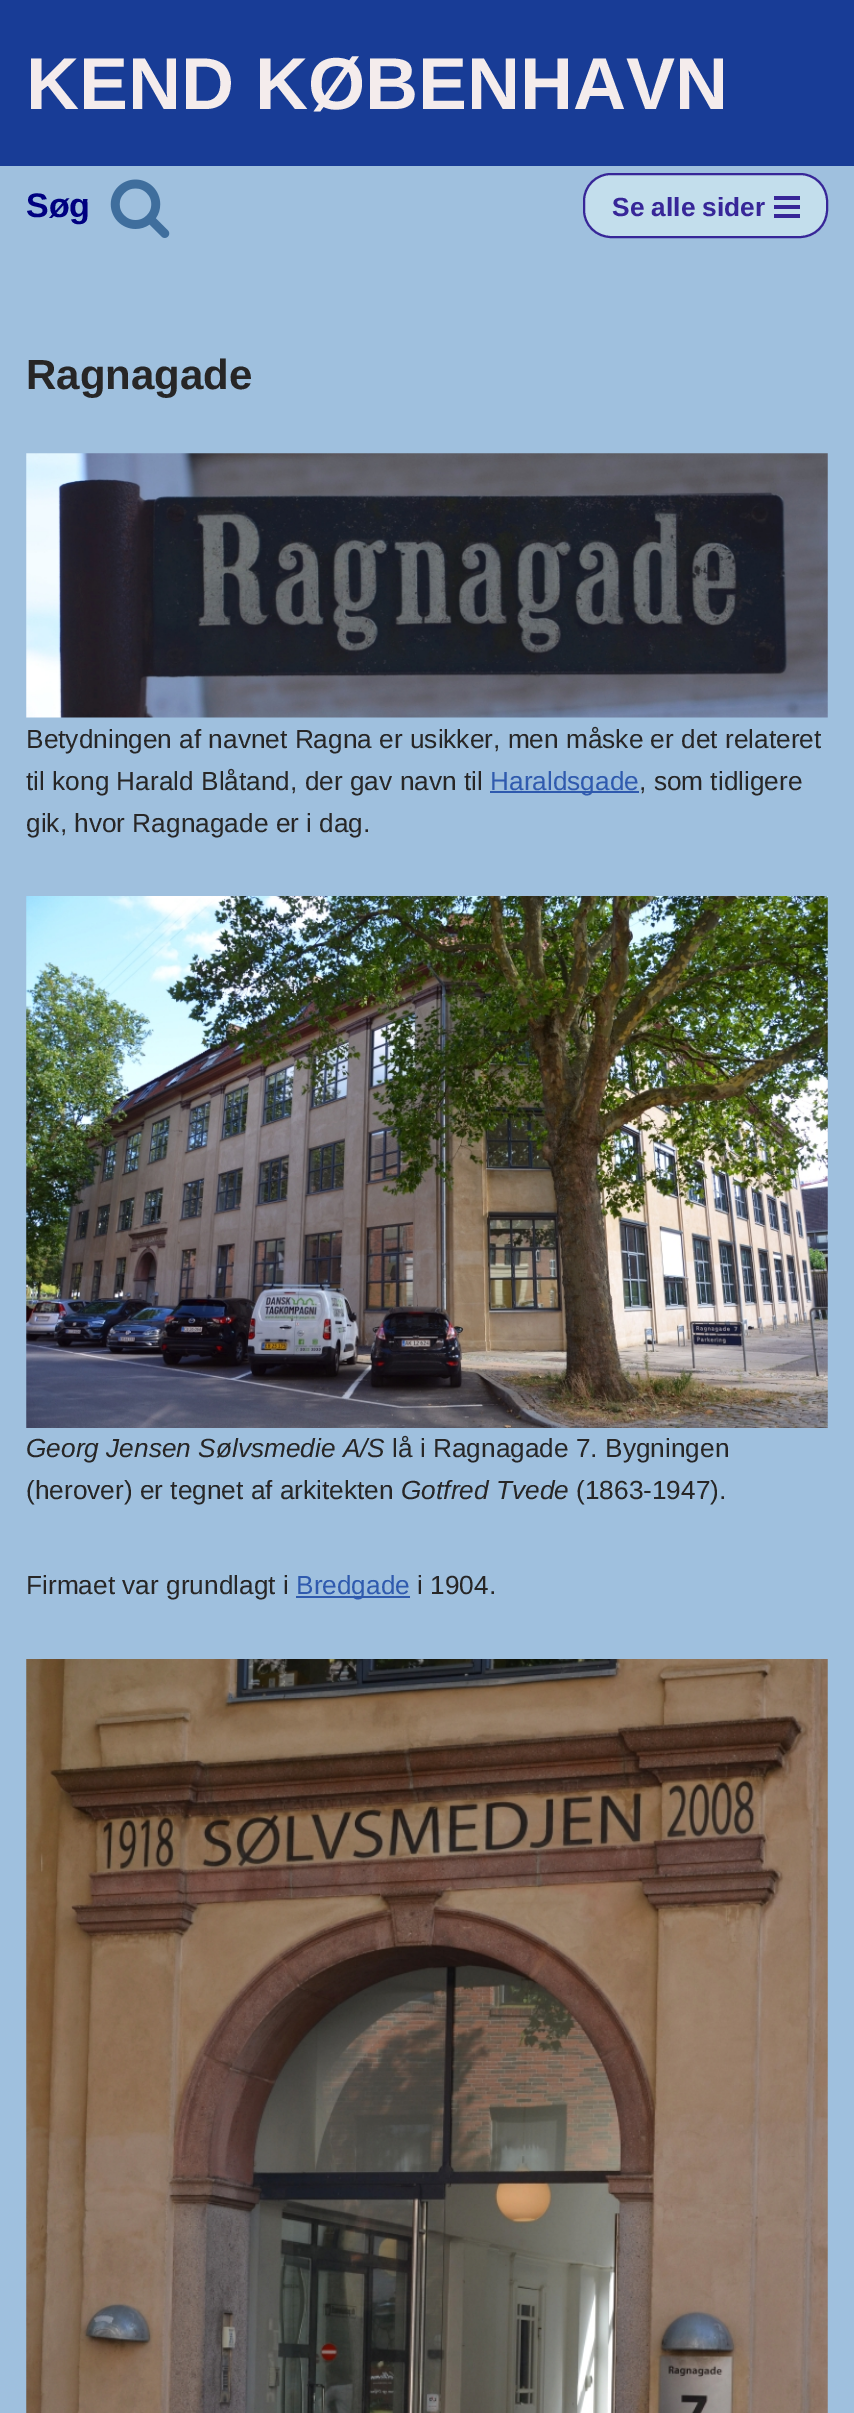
%!PS-Adobe-3.0
%%BoundingBox: 0 0 854 2413
%%LanguageLevel: 3
%%Pages: 1
%%EndComments
%%BeginProlog
/rrect { 5 dict begin { /r /h /w /y /x } { exch def } forall
  x r add y moveto x w add y 2 copy h add r arct x w add y h add x 1 index r arct
  x y h add x y r arct x y 2 copy exch w add exch r arct closepath end } def
/drawimage { 5 dict begin { /h /w /y /x /name } { exch def } forall
  gsave x y translate w h scale
  w h 8 [w 0 0 h 0 0] name (r) file false 3 colorimage grestore end } def
%%EndProlog
%%BeginSetup
<< /PageSize [854 2413] >> setpagedevice
%%EndSetup
%%Page: 1 1
0 2413 translate 1 -1 scale
4 setmiterlimit
0.624 0.753 0.871 setrgbcolor
0 0 854 2413 rectfill
0.094 0.235 0.588 setrgbcolor
0 0 854 166 rectfill
(images/1.raw) 110 179 60 59 drawimage
0.765 0.871 0.925 setrgbcolor
584 174 243 63 27 rrect gsave fill grestore
0.216 0.149 0.596 setrgbcolor
2 setlinewidth
stroke
774 196 26 4 rectfill
774 205 26 4 rectfill
774 214 26 4 rectfill
(images/2.raw) 26 453 802 265 drawimage
0.184 0.353 0.682 setrgbcolor
490 791 149 2 rectfill
(images/3.raw) 26 896 802 532 drawimage
296 1596 114 2 rectfill
(images/4.raw) 26 1659 802 754 drawimage
/LiberationSans-Bold [73.5 0 0 -73.5 0 0] selectfont
0.957 0.925 0.925 setrgbcolor
26 109 moveto (KEND KØBENHAVN) show
/LiberationSans-Bold [34 0 0 -34 0 0] selectfont
0 0 0.502 setrgbcolor
26 217 moveto (Søg) show
/LiberationSans-Bold [26.25 0 0 -26.25 0 0] selectfont
0.216 0.149 0.596 setrgbcolor
612 216 moveto (Se alle sider) show
/LiberationSans-Bold [42 0 0 -42 0 0] selectfont
0.153 0.149 0.149 setrgbcolor
26 389 moveto (Ragnagade) show
/LiberationSans-Regular [26.25 0 0 -26.25 0 0] selectfont
26 748 moveto (Betydningen af navnet Ragna er usikker, men måske er det relateret) show
26 790 moveto (til kong Harald Blåtand, der gav navn til) show
0.184 0.353 0.682 setrgbcolor
490 790 moveto (Haraldsgade) show
0.153 0.149 0.149 setrgbcolor
639 790 moveto (, som tidligere) show
26 832 moveto (gik, hvor Ragnagade er i dag.) show
/LiberationSans-Italic [26.25 0 0 -26.25 0 0] selectfont
26 1457 moveto (Georg Jensen Sølvsmedie A/S) show
/LiberationSans-Regular [26.25 0 0 -26.25 0 0] selectfont
392 1457 moveto (lå i Ragnagade 7. Bygningen) show
26 1499 moveto (\(herover\) er tegnet af arkitekten) show
/LiberationSans-Italic [26.25 0 0 -26.25 0 0] selectfont
401 1499 moveto (Gotfred Tvede) show
/LiberationSans-Regular [26.25 0 0 -26.25 0 0] selectfont
576 1499 moveto (\(1863-1947\).) show
26 1594 moveto (Firmaet var grundlagt i) show
0.184 0.353 0.682 setrgbcolor
296 1594 moveto (Bredgade) show
0.153 0.149 0.149 setrgbcolor
417 1594 moveto (i 1904.) show
showpage
%%EOF
